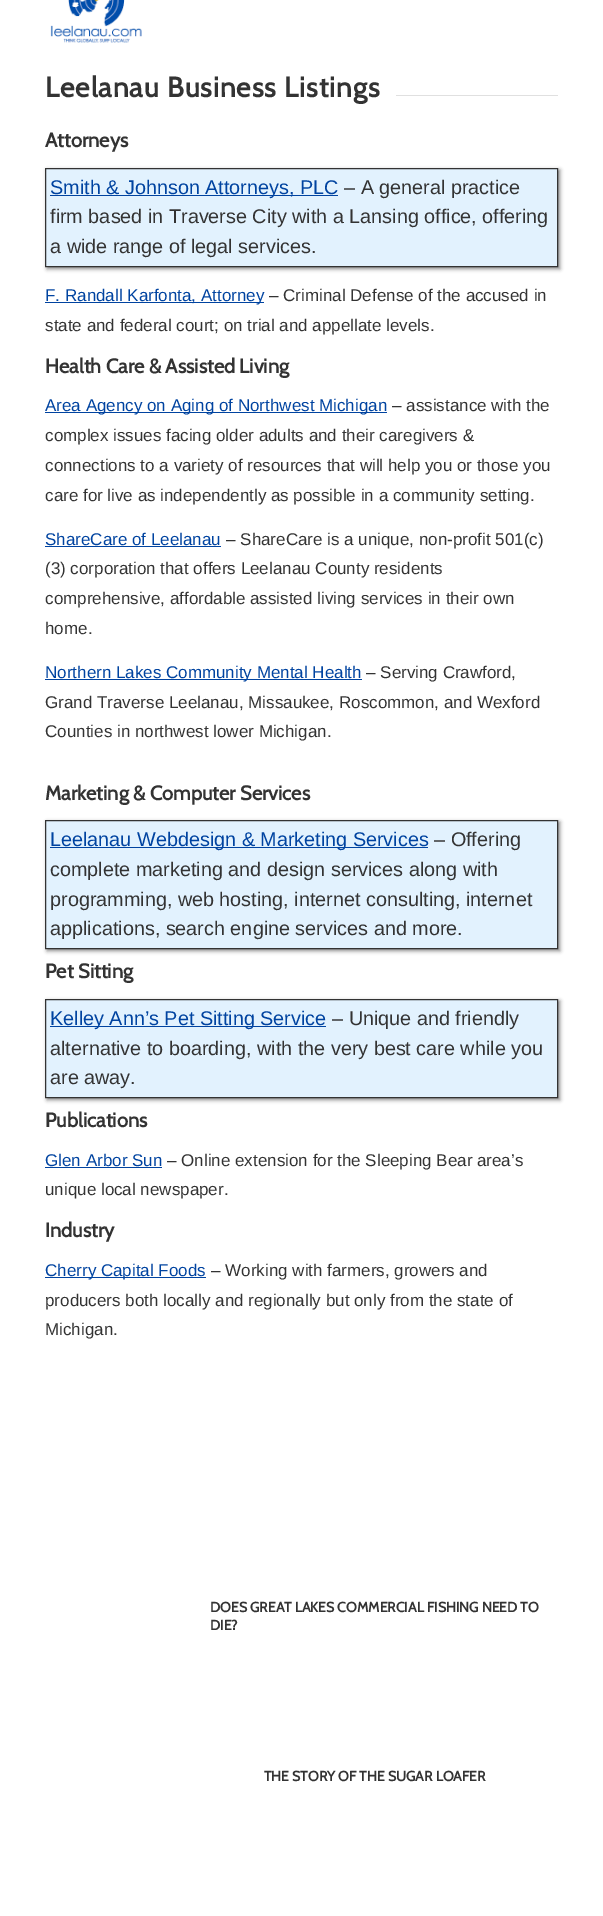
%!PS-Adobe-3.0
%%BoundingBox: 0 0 603 1916
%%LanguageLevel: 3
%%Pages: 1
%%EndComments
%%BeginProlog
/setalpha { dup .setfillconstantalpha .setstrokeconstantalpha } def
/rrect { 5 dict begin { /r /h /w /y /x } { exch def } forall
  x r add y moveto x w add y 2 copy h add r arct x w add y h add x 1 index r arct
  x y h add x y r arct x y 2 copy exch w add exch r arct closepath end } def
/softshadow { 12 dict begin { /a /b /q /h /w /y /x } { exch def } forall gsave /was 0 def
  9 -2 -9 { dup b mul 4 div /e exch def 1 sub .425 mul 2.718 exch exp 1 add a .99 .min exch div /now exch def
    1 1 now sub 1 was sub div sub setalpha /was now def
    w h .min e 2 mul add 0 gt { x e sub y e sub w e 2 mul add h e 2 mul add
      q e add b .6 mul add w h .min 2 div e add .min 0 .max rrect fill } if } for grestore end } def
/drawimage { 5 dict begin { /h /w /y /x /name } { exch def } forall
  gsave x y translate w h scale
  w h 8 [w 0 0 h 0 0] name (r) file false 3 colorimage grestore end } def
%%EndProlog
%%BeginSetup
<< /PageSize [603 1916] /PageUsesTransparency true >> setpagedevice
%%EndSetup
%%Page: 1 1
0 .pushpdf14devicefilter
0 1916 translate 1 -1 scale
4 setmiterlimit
1 setgray
0 0 603 1916 rectfill
(images/1.raw) 50 0 92 43 drawimage
0.878 setgray
396 95 162 1 rectfill
0.533 setgray
47 170 513 99 0 2 1 softshadow
0.886 0.949 0.996 setrgbcolor
newpath 45.5 168.5 moveto 557.5 168.5 lineto 557.5 266.5 lineto 45.5 266.5 lineto closepath gsave fill grestore
0.2 setgray
stroke
0 0.263 0.627 setrgbcolor
50 195 288 1 rectfill
45 302 219 1 rectfill
45 412 342 1 rectfill
45 546 176 1 rectfill
45 679 317 1 rectfill
0.533 setgray
47 822 513 129 0 2 1 softshadow
0.886 0.949 0.996 setrgbcolor
newpath 45.5 820.5 moveto 557.5 820.5 lineto 557.5 948.5 lineto 45.5 948.5 lineto closepath gsave fill grestore
0.2 setgray
stroke
0 0.263 0.627 setrgbcolor
50 847 378 1 rectfill
0.533 setgray
47 1001 513 99 0 2 1 softshadow
0.886 0.949 0.996 setrgbcolor
newpath 45.5 999.5 moveto 557.5 999.5 lineto 557.5 1097.5 lineto 45.5 1097.5 lineto closepath gsave fill grestore
0.2 setgray
stroke
0 0.263 0.627 setrgbcolor
50 1026 276 1 rectfill
45 1167 117 1 rectfill
45 1277 161 1 rectfill
/Cabin-Bold [28 0 0 -28 0 0] selectfont
0.2 setgray
45 97 moveto 1 0 (Leelanau Business Listings) ashow
/Cabin-Bold [20 0 0 -20 0 0] selectfont
45 147 moveto (Attorneys) show
/LiberationSans-Regular [19.8 0 0 -19.8 0 0] selectfont
0 0.263 0.627 setrgbcolor
50 194 moveto (Smith & Johnson Attorneys, PLC) show
0.2 setgray
344 194 moveto (– A general practice) show
50 223 moveto (firm based in Traverse City with a Lansing office, offering) show
50 253 moveto (a wide range of legal services.) show
/LiberationSans-Regular [17 0 0 -17 0 0] selectfont
0 0.263 0.627 setrgbcolor
45 301 moveto (F. Randall Karfonta, Attorney) show
0.2 setgray
269 301 moveto (– Criminal Defense of the accused in) show
45 331 moveto (state and federal court; on trial and appellate levels.) show
/Cabin-Bold [20 0 0 -20 0 0] selectfont
45 373 moveto (Health Care & Assisted Living) show
/LiberationSans-Regular [17 0 0 -17 0 0] selectfont
0 0.263 0.627 setrgbcolor
45 411 moveto (Area Agency on Aging of Northwest Michigan) show
0.2 setgray
392 411 moveto (– assistance with the) show
45 441 moveto (complex issues facing older adults and their caregivers &) show
45 471 moveto (connections to a variety of resources that will help you or those you) show
45 501 moveto (care for live as independently as possible in a community setting.) show
0 0.263 0.627 setrgbcolor
45 545 moveto (ShareCare of Leelanau) show
0.2 setgray
226 545 moveto (– ShareCare is a unique, non-profit 501\(c\)) show
45 574 moveto (\(3\) corporation that offers Leelanau County residents) show
45 604 moveto (comprehensive, affordable assisted living services in their own) show
45 634 moveto (home.) show
0 0.263 0.627 setrgbcolor
45 678 moveto (Northern Lakes Community Mental Health) show
0.2 setgray
366 678 moveto (– Serving Crawford,) show
45 708 moveto (Grand Traverse Leelanau, Missaukee, Roscommon, and Wexford) show
45 737 moveto (Counties in northwest lower Michigan.) show
/Cabin-Bold [20 0 0 -20 0 0] selectfont
45 800 moveto (Marketing & Computer Services) show
/LiberationSans-Regular [19.8 0 0 -19.8 0 0] selectfont
0 0.263 0.627 setrgbcolor
50 846 moveto (Leelanau Webdesign & Marketing Services) show
0.2 setgray
434 846 moveto (– Offering) show
50 876 moveto (complete marketing and design services along with) show
50 906 moveto (programming, web hosting, internet consulting, internet) show
50 935 moveto (applications, search engine services and more.) show
/Cabin-Bold [20 0 0 -20 0 0] selectfont
45 978 moveto (Pet Sitting) show
/LiberationSans-Regular [19.8 0 0 -19.8 0 0] selectfont
0 0.263 0.627 setrgbcolor
50 1025 moveto (Kelley Ann’s Pet Sitting Service) show
0.2 setgray
332 1025 moveto (– Unique and friendly) show
50 1055 moveto (alternative to boarding, with the very best care while you) show
50 1084 moveto (are away.) show
/Cabin-Bold [20 0 0 -20 0 0] selectfont
45 1127 moveto (Publications) show
/LiberationSans-Regular [17 0 0 -17 0 0] selectfont
0 0.263 0.627 setrgbcolor
45 1166 moveto (Glen Arbor Sun) show
0.2 setgray
167 1166 moveto (– Online extension for the Sleeping Bear area’s) show
45 1195 moveto (unique local newspaper.) show
/Cabin-Bold [20 0 0 -20 0 0] selectfont
45 1237 moveto (Industry) show
/LiberationSans-Regular [17 0 0 -17 0 0] selectfont
0 0.263 0.627 setrgbcolor
45 1276 moveto (Cherry Capital Foods) show
0.2 setgray
211 1276 moveto (– Working with farmers, growers and) show
45 1306 moveto (producers both locally and regionally but only from the state of) show
45 1335 moveto (Michigan.) show
/Cabin-Bold [14 0 0 -14 0 0] selectfont
210 1612 moveto (DOES GREAT LAKES COMMERCIAL FISHING NEED TO) show
210 1630 moveto (DIE?) show
264 1781 moveto (THE STORY OF THE SUGAR LOAFER) show
.poppdf14devicefilter showpage
%%EOF
